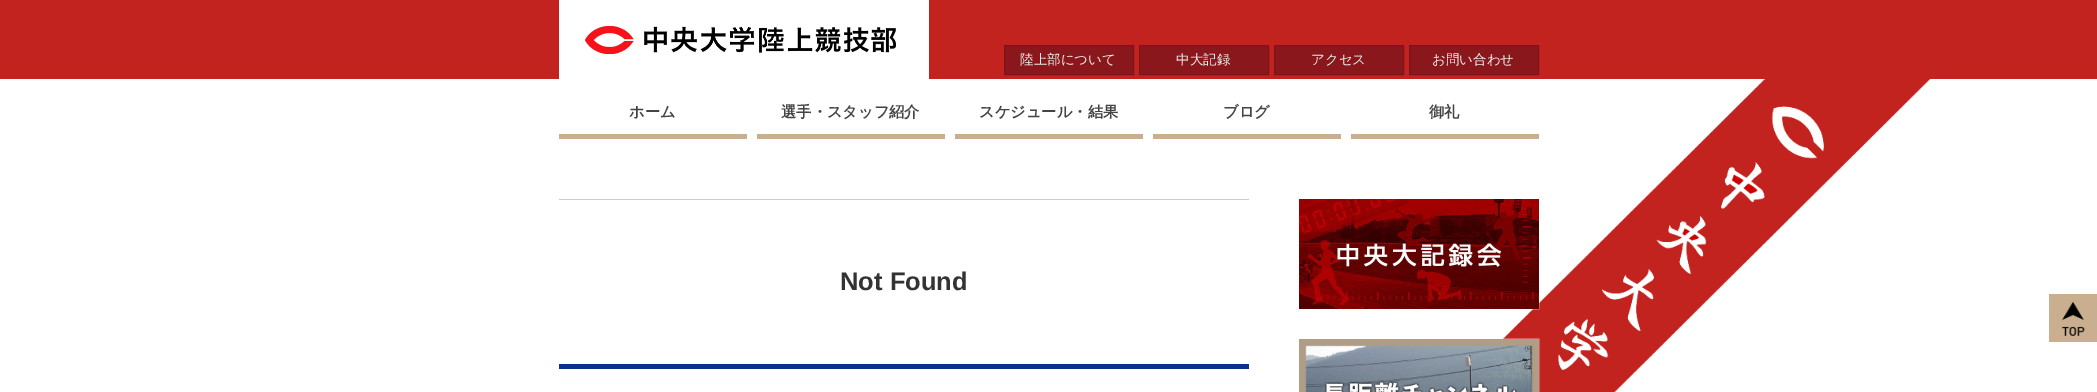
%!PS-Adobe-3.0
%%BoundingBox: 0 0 2097 392
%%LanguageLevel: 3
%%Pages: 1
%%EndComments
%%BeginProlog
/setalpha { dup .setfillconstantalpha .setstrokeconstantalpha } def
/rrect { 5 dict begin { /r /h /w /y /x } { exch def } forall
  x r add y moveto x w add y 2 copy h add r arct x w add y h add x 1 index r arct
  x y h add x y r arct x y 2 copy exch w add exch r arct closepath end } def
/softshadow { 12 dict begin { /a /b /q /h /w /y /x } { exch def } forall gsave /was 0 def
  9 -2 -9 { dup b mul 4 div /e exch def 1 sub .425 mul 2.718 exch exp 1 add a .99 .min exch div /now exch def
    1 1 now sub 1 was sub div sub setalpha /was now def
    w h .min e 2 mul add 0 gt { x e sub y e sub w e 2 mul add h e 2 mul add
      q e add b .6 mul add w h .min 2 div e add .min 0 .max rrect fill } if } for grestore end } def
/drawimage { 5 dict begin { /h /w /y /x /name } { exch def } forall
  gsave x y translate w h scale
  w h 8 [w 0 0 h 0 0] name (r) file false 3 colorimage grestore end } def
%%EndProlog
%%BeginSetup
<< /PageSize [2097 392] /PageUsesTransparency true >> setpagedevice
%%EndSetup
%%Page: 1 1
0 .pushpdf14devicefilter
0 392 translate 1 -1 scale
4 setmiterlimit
1 setgray
0 0 2097 392 rectfill
(images/1.raw) 1502 79 429 313 drawimage
0.761 0.137 0.118 setrgbcolor
0 0 2097 79 rectfill
1 setgray
559 0 370 79 rectfill
(images/2.raw) 585 26 311 28 drawimage
0.537 0.09 0.11 setrgbcolor
newpath 1004.5 45.5 moveto 1133.5 45.5 lineto 1133.5 74.5 lineto 1004.5 74.5 lineto closepath gsave fill grestore
0.482 0.082 0.098 setrgbcolor
stroke
0.537 0.09 0.11 setrgbcolor
newpath 1139.5 45.5 moveto 1268.5 45.5 lineto 1268.5 74.5 lineto 1139.5 74.5 lineto closepath gsave fill grestore
0.482 0.082 0.098 setrgbcolor
stroke
0.537 0.09 0.11 setrgbcolor
newpath 1274.5 45.5 moveto 1403.5 45.5 lineto 1403.5 74.5 lineto 1274.5 74.5 lineto closepath gsave fill grestore
0.482 0.082 0.098 setrgbcolor
stroke
0.537 0.09 0.11 setrgbcolor
newpath 1409.5 45.5 moveto 1538.5 45.5 lineto 1538.5 74.5 lineto 1409.5 74.5 lineto closepath gsave fill grestore
0.482 0.082 0.098 setrgbcolor
stroke
0.788 0.686 0.565 setrgbcolor
559 134 188 5 rectfill
757 134 188 5 rectfill
955 134 188 5 rectfill
1153 134 188 5 rectfill
1351 134 188 5 rectfill
0.8 setgray
559 199 690 1 rectfill
0.043 0.192 0.561 setrgbcolor
559 364 690 5 rectfill
1 setgray
1299 199 240 110 0 0.5 1 softshadow
(images/3.raw) 1299 199 240 110 drawimage
1299 339 240 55 0 0.5 1 softshadow
(images/4.raw) 1299 339 240 53 drawimage
(images/5.raw) 2049 294 48 48 drawimage
/WenQuanYiZenHei-Medium [13.5 0 0 -13.5 0 0] selectfont
0.941 setgray
1020 64 moveto (陸上部について) show
1176 64 moveto (中大記録) show
1311 64 moveto (アクセス) show
1432 64 moveto (お問い合わせ) show
/WenQuanYiZenHei-Bold [15.25 0 0 -15.25 0 0] selectfont
0.267 setgray
629 117 moveto (ホーム) show
781 117 moveto (選手・スタッフ紹介) show
979 117 moveto (スケジュール・結果) show
1223 117 moveto (ブログ) show
1429 117 moveto (御礼) show
/LiberationSans-Bold [25.5 0 0 -25.5 0 0] selectfont
0.2 setgray
840 290 moveto (Not Found) show
.poppdf14devicefilter showpage
%%EOF
